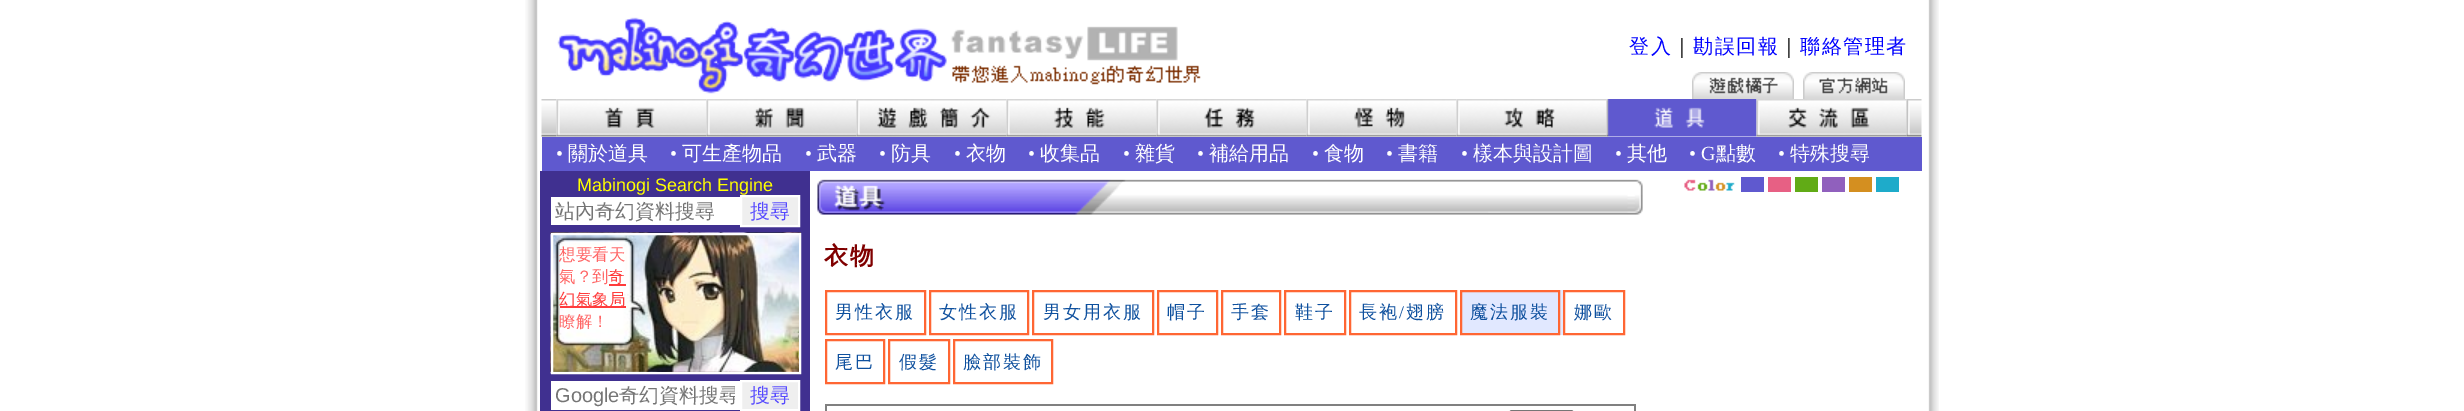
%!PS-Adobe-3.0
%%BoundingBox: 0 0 2464 411
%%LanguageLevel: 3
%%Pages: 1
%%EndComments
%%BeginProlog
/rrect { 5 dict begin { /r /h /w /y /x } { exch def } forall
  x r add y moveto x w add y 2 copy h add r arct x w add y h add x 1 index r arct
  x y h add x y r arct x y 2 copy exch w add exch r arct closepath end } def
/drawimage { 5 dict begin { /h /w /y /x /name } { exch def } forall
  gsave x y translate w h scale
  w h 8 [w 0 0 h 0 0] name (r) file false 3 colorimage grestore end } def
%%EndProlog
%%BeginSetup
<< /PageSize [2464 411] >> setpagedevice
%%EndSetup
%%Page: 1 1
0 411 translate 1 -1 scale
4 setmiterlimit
1 setgray
0 0 2464 411 rectfill
(images/1.raw) 525 0 1414 411 drawimage
(images/2.raw) 557 17 644 77 drawimage
(images/3.raw) 1692 72 102 27 drawimage
(images/4.raw) 1803 72 102 27 drawimage
(images/5.raw) 541 99 16 38 drawimage
(images/6.raw) 556 99 151 38 drawimage
(images/7.raw) 706 99 151 38 drawimage
(images/8.raw) 856 99 151 38 drawimage
(images/9.raw) 1006 99 151 38 drawimage
(images/10.raw) 1156 99 151 38 drawimage
(images/11.raw) 1306 99 151 38 drawimage
(images/12.raw) 1456 99 151 38 drawimage
(images/13.raw) 1606 99 151 38 drawimage
(images/14.raw) 1756 99 151 38 drawimage
(images/15.raw) 1906 99 16 38 drawimage
0.373 0.349 0.812 setrgbcolor
542 137 1380 34 rectfill
0.251 0.188 0.565 setrgbcolor
540 171 270 240 rectfill
1 setgray
551 197 189 28 rectfill
0.937 setgray
newpath 741 196 moveto 799 196 lineto 799 226 lineto 741 226 lineto closepath gsave fill grestore
1 setgray
2 setlinewidth
stroke
(images/16.raw) 550 232 251 142 drawimage
552 234 248 139 rectstroke
1 0.235 0.235 setrgbcolor
609 284 17 2 rectfill
560 306 66 2 rectfill
1 setgray
551 381 189 29 rectfill
0.937 setgray
newpath 741 381 moveto 799 381 lineto 799 410 lineto 741 410 lineto closepath gsave fill grestore
1 setgray
stroke
(images/17.raw) 1684 179 51 12 drawimage
0.373 0.349 0.812 setrgbcolor
1741 177 23 15 rectfill
0.906 0.376 0.518 setrgbcolor
1768 177 23 15 rectfill
0.38 0.671 0.086 setrgbcolor
1795 177 23 15 rectfill
0.565 0.376 0.741 setrgbcolor
1822 177 23 15 rectfill
0.831 0.561 0.125 setrgbcolor
1849 177 23 15 rectfill
0.118 0.671 0.792 setrgbcolor
1876 177 23 15 rectfill
(images/18.raw) 817 179 826 36 drawimage
1 0.4 0.2 setrgbcolor
826 291 99 43 rectstroke
930 291 98 43 rectstroke
1033 291 120 43 rectstroke
1158 291 59 43 rectstroke
1222 291 58 43 rectstroke
1285 291 60 43 rectstroke
1350 291 106 43 rectstroke
0.882 0.91 1 setrgbcolor
1462 290 101 45 rectfill
1 0.4 0.2 setrgbcolor
1461 291 98 43 rectstroke
1564 291 60 43 rectstroke
826 340 58 43 rectstroke
889 340 60 43 rectstroke
954 340 98 43 rectstroke
0.502 setgray
825 404 810 2 rectfill
1634 404 2 7 rectfill
825 404 2 7 rectfill
0.463 setgray
1510 411 63 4 2 rrect stroke
/WenQuanYiZenHei-Medium [20 0 0 -20 0 0] selectfont
0 0 1 setrgbcolor
1629 53 moveto 1.5 0 (登入) ashow
0 setgray
1672 53 moveto 1.5 0 (｜) ashow
0 0 1 setrgbcolor
1693 53 moveto 1.5 0 (勘誤回報) ashow
0 setgray
1779 53 moveto 1.5 0 (｜) ashow
0 0 1 setrgbcolor
1800 53 moveto 1.5 0 (聯絡管理者) ashow
/LiberationSerif-Regular [20 0 0 -20 0 0] selectfont
1 setgray
556 160 moveto (•) show
/WenQuanYiZenHei-Medium [20 0 0 -20 0 0] selectfont
568 160 moveto (關於道具) show
/LiberationSerif-Regular [20 0 0 -20 0 0] selectfont
670 160 moveto (•) show
/WenQuanYiZenHei-Medium [20 0 0 -20 0 0] selectfont
682 160 moveto (可生產物品) show
/LiberationSerif-Regular [20 0 0 -20 0 0] selectfont
805 160 moveto (•) show
/WenQuanYiZenHei-Medium [20 0 0 -20 0 0] selectfont
817 160 moveto (武器) show
/LiberationSerif-Regular [20 0 0 -20 0 0] selectfont
879 160 moveto (•) show
/WenQuanYiZenHei-Medium [20 0 0 -20 0 0] selectfont
891 160 moveto (防具) show
/LiberationSerif-Regular [20 0 0 -20 0 0] selectfont
954 160 moveto (•) show
/WenQuanYiZenHei-Medium [20 0 0 -20 0 0] selectfont
966 160 moveto (衣物) show
/LiberationSerif-Regular [20 0 0 -20 0 0] selectfont
1028 160 moveto (•) show
/WenQuanYiZenHei-Medium [20 0 0 -20 0 0] selectfont
1040 160 moveto (收集品) show
/LiberationSerif-Regular [20 0 0 -20 0 0] selectfont
1123 160 moveto (•) show
/WenQuanYiZenHei-Medium [20 0 0 -20 0 0] selectfont
1135 160 moveto (雜貨) show
/LiberationSerif-Regular [20 0 0 -20 0 0] selectfont
1197 160 moveto (•) show
/WenQuanYiZenHei-Medium [20 0 0 -20 0 0] selectfont
1209 160 moveto (補給用品) show
/LiberationSerif-Regular [20 0 0 -20 0 0] selectfont
1312 160 moveto (•) show
/WenQuanYiZenHei-Medium [20 0 0 -20 0 0] selectfont
1324 160 moveto (食物) show
/LiberationSerif-Regular [20 0 0 -20 0 0] selectfont
1386 160 moveto (•) show
/WenQuanYiZenHei-Medium [20 0 0 -20 0 0] selectfont
1398 160 moveto (書籍) show
/LiberationSerif-Regular [20 0 0 -20 0 0] selectfont
1461 160 moveto (•) show
/WenQuanYiZenHei-Medium [20 0 0 -20 0 0] selectfont
1473 160 moveto (樣本與設計圖) show
/LiberationSerif-Regular [20 0 0 -20 0 0] selectfont
1615 160 moveto (•) show
/WenQuanYiZenHei-Medium [20 0 0 -20 0 0] selectfont
1627 160 moveto (其他) show
/LiberationSerif-Regular [20 0 0 -20 0 0] selectfont
1689 160 moveto (• G) show
/WenQuanYiZenHei-Medium [20 0 0 -20 0 0] selectfont
1716 160 moveto (點數) show
/LiberationSerif-Regular [20 0 0 -20 0 0] selectfont
1778 160 moveto (•) show
/WenQuanYiZenHei-Medium [20 0 0 -20 0 0] selectfont
1790 160 moveto (特殊搜尋) show
/LiberationSans-Regular [18 0 0 -18 0 0] selectfont
1 1 0 setrgbcolor
577 191 moveto (Mabinogi Search Engine) show
/WenQuanYiZenHei-Medium [20 0 0 -20 0 0] selectfont
0.459 setgray
555 218 moveto (站內奇幻資料搜尋) show
0.337 0.29 1 setrgbcolor
750 218 moveto (搜尋) show
/WenQuanYiZenHei-Medium [16.5 0 0 -16.5 0 0] selectfont
1 0.4 0.4 setrgbcolor
559 260 moveto (想要看天) show
559 282 moveto (氣？到) show
1 0.235 0.235 setrgbcolor
608 282 moveto (奇) show
559 305 moveto (幻氣象局) show
1 0.4 0.4 setrgbcolor
559 327 moveto (瞭解！) show
/LiberationSans-Regular [20 0 0 -20 0 0] selectfont
0.459 setgray
555 402 moveto (Google) show
gsave
555 383 180 25 rectclip
/WenQuanYiZenHei-Medium [20 0 0 -20 0 0] selectfont
619 402 moveto (奇幻資料搜尋) show
grestore
/WenQuanYiZenHei-Medium [20 0 0 -20 0 0] selectfont
0.337 0.29 1 setrgbcolor
750 402 moveto (搜尋) show
/WenQuanYiZenHei-Bold [24 0 0 -24 0 0] selectfont
0.502 0 0 setrgbcolor
824 264 moveto 2 0 (衣物) ashow
/WenQuanYiZenHei-Medium [18 0 0 -18 0 0] selectfont
0.055 0.314 0.62 setrgbcolor
835 318 moveto 2 0 (男性衣服) ashow
939 318 moveto 2 0 (女性衣服) ashow
1043 318 moveto 2 0 (男女用衣服) ashow
1167 318 moveto 2 0 (帽子) ashow
1231 318 moveto 2 0 (手套) ashow
1295 318 moveto 2 0 (鞋子) ashow
1359 318 moveto 2 0 (長袍) ashow
/LiberationSerif-Regular [18 0 0 -18 0 0] selectfont
1399 318 moveto 2 0 (/) ashow
/WenQuanYiZenHei-Medium [18 0 0 -18 0 0] selectfont
1406 318 moveto 2 0 (翅膀) ashow
1470 318 moveto 2 0 (魔法服裝) ashow
1574 318 moveto 2 0 (娜歐) ashow
835 368 moveto 2 0 (尾巴) ashow
899 368 moveto 2 0 (假髮) ashow
963 368 moveto 2 0 (臉部裝飾) ashow
showpage
%%EOF
